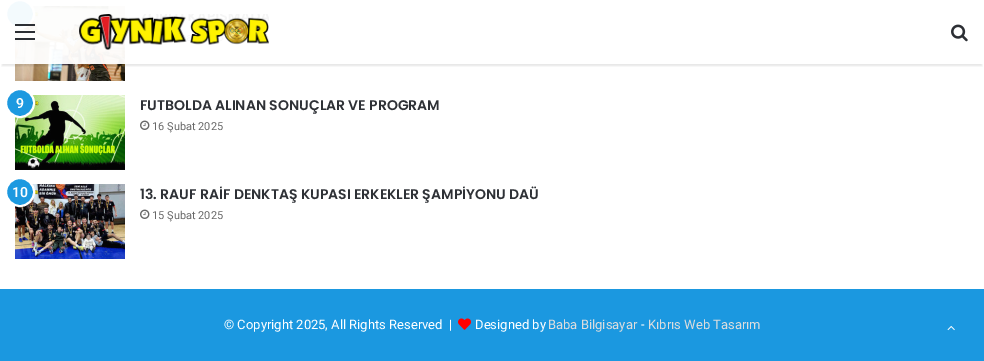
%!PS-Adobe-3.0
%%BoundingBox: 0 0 984 361
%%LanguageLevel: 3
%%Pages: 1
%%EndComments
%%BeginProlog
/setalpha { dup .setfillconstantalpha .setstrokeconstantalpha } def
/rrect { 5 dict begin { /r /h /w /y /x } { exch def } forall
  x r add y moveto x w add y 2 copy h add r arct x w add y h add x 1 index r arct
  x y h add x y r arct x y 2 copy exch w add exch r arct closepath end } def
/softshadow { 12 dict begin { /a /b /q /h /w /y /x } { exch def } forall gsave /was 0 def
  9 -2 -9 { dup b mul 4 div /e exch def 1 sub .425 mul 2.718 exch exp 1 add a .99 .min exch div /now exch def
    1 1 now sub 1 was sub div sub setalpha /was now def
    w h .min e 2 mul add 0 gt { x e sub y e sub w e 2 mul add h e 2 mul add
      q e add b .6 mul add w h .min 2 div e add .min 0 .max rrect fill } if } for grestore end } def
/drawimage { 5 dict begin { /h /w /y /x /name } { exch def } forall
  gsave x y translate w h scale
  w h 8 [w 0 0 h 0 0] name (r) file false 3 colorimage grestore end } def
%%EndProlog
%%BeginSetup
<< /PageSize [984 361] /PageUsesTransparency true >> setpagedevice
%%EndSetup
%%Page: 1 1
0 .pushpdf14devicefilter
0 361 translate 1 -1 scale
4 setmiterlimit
1 setgray
0 0 984 361 rectfill
(images/3.raw) 15 6 110 75 drawimage
0.114 0.6 0.878 setrgbcolor
newpath 20 14 14 0 360 arc closepath gsave fill grestore
1 setgray
2 setlinewidth
stroke
(images/4.raw) 140 36 4 5 drawimage
gsave
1 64 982 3 rectclip
0 setgray
2 6 980 60 0 1 0.1 softshadow
grestore
0.95 setalpha
5 0 139 64 rectfill
1 setalpha
0.173 0.184 0.204 setrgbcolor
15 31 20 2 rectfill
15 24 20 2 rectfill
15 38 20 2 rectfill
(images/1.raw) 79 14 190 36 drawimage
(images/2.raw) 951 24 17 18 drawimage
(images/5.raw) 15 95 110 75 drawimage
0.114 0.6 0.878 setrgbcolor
newpath 20 103 14 0 360 arc closepath gsave fill grestore
1 setgray
stroke
(images/6.raw) 140 120 10 10 drawimage
(images/7.raw) 15 184 110 75 drawimage
0.114 0.6 0.878 setrgbcolor
newpath 20 192 14 0 360 arc closepath gsave fill grestore
1 setgray
stroke
(images/6.raw) 140 209 10 10 drawimage
0.106 0.596 0.878 setrgbcolor
0 289 984 72 rectfill
(images/8.raw) 458 318 13 12 drawimage
(images/9.raw) 947 325 8 6 drawimage
/Roboto-SemiBold [14 0 0 -14 0 0] selectfont
1 setgray
16 108 moveto (9) show
/Poppins-SemiBold [14 0 0 -14 0 0] selectfont
0.18 0.192 0.212 setrgbcolor
140 110 moveto (FUTBOLDA ALINAN SONUÇLAR VE PROGRAM) show
/Roboto-Regular [11 0 0 -11 0 0] selectfont
0.408 setgray
152 130 moveto (16 Şubat 2025) show
/Roboto-SemiBold [14 0 0 -14 0 0] selectfont
1 setgray
12 197 moveto (10) show
/Poppins-SemiBold [14 0 0 -14 0 0] selectfont
0.18 0.192 0.212 setrgbcolor
140 199 moveto (13. RAUF RAİF DENKTAŞ KUPASI ERKEKLER ŞAMPİYONU DAÜ) show
/Roboto-Regular [11 0 0 -11 0 0] selectfont
0.408 setgray
152 219 moveto (15 Şubat 2025) show
/Roboto-Regular [13 0 0 -13 0 0] selectfont
1 setgray
224 329 moveto (© Copyright 2025, All Rights Reserved  |) show
475 329 moveto (Designed by) show
0.867 setgray
548 329 moveto (Baba Bilgisayar) show
1 setgray
641 329 moveto (-) show
0.867 setgray
648 329 moveto (Kıbrıs Web Tasarım) show
.poppdf14devicefilter showpage
%%EOF
